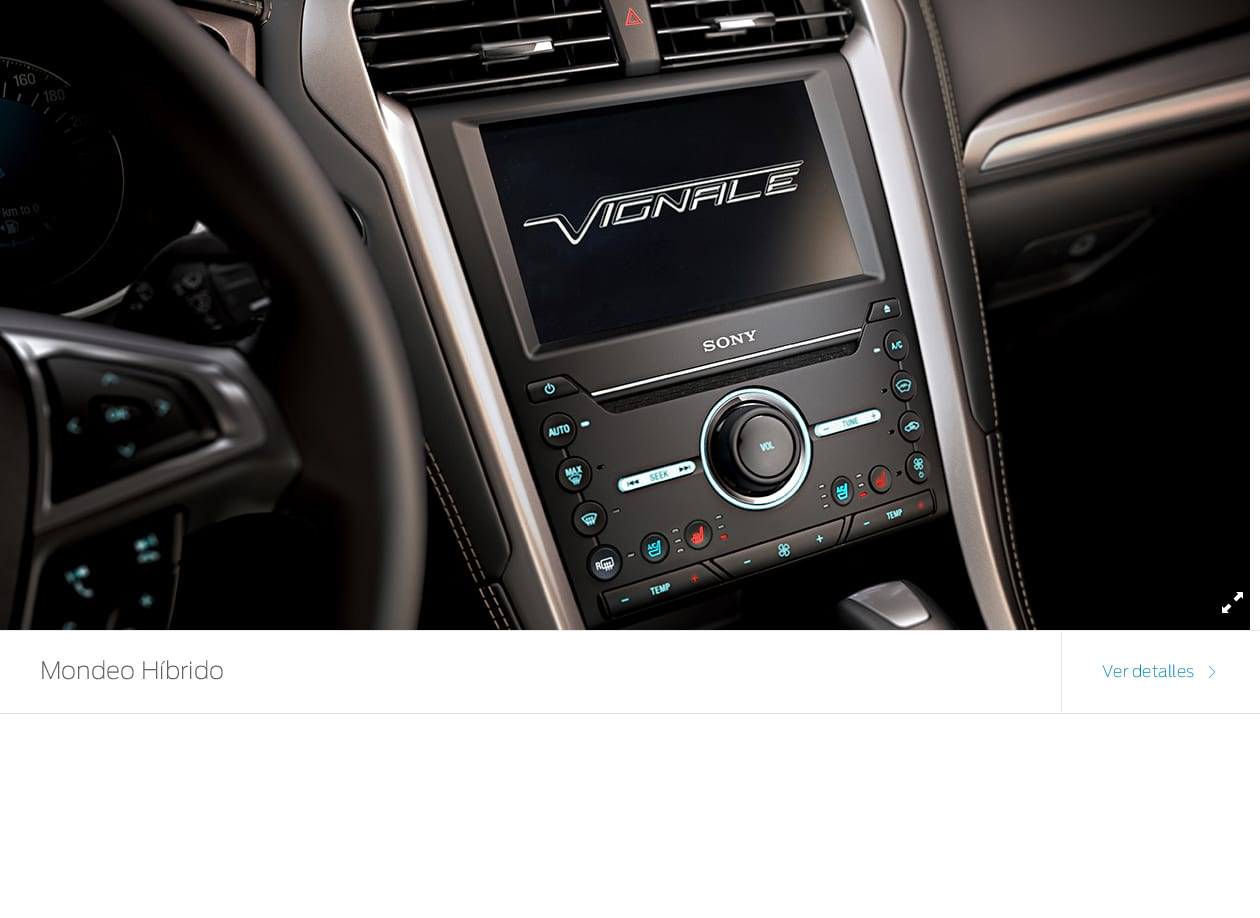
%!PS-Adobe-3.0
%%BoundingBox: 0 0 1260 918
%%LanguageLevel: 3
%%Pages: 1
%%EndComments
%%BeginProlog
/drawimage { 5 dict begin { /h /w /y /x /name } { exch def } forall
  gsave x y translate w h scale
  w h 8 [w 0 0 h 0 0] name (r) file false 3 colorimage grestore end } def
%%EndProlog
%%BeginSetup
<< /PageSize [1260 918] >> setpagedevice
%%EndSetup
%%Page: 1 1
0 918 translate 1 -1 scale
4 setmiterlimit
1 setgray
0 0 1260 918 rectfill
(images/1.raw) 0 0 1250 630 drawimage
(images/2.raw) 1222 592 21 21 drawimage
0.906 setgray
0 630 1260 1 rectfill
1061 632 1 80 rectfill
(images/3.raw) 1208 666 8 12 drawimage
0.878 setgray
0 713 1260 1 rectfill
/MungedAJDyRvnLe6-ExtraLight [24 0 0 -24 0 0] selectfont
0.38 setgray
40 679 moveto (Mondeo Híbrido) show
/MungedAJDyRvnLe6-ExtraLight [16 0 0 -16 0 0] selectfont
0 0.549 0.729 setrgbcolor
1102 677 moveto (Ver detalles) show
showpage
%%EOF
